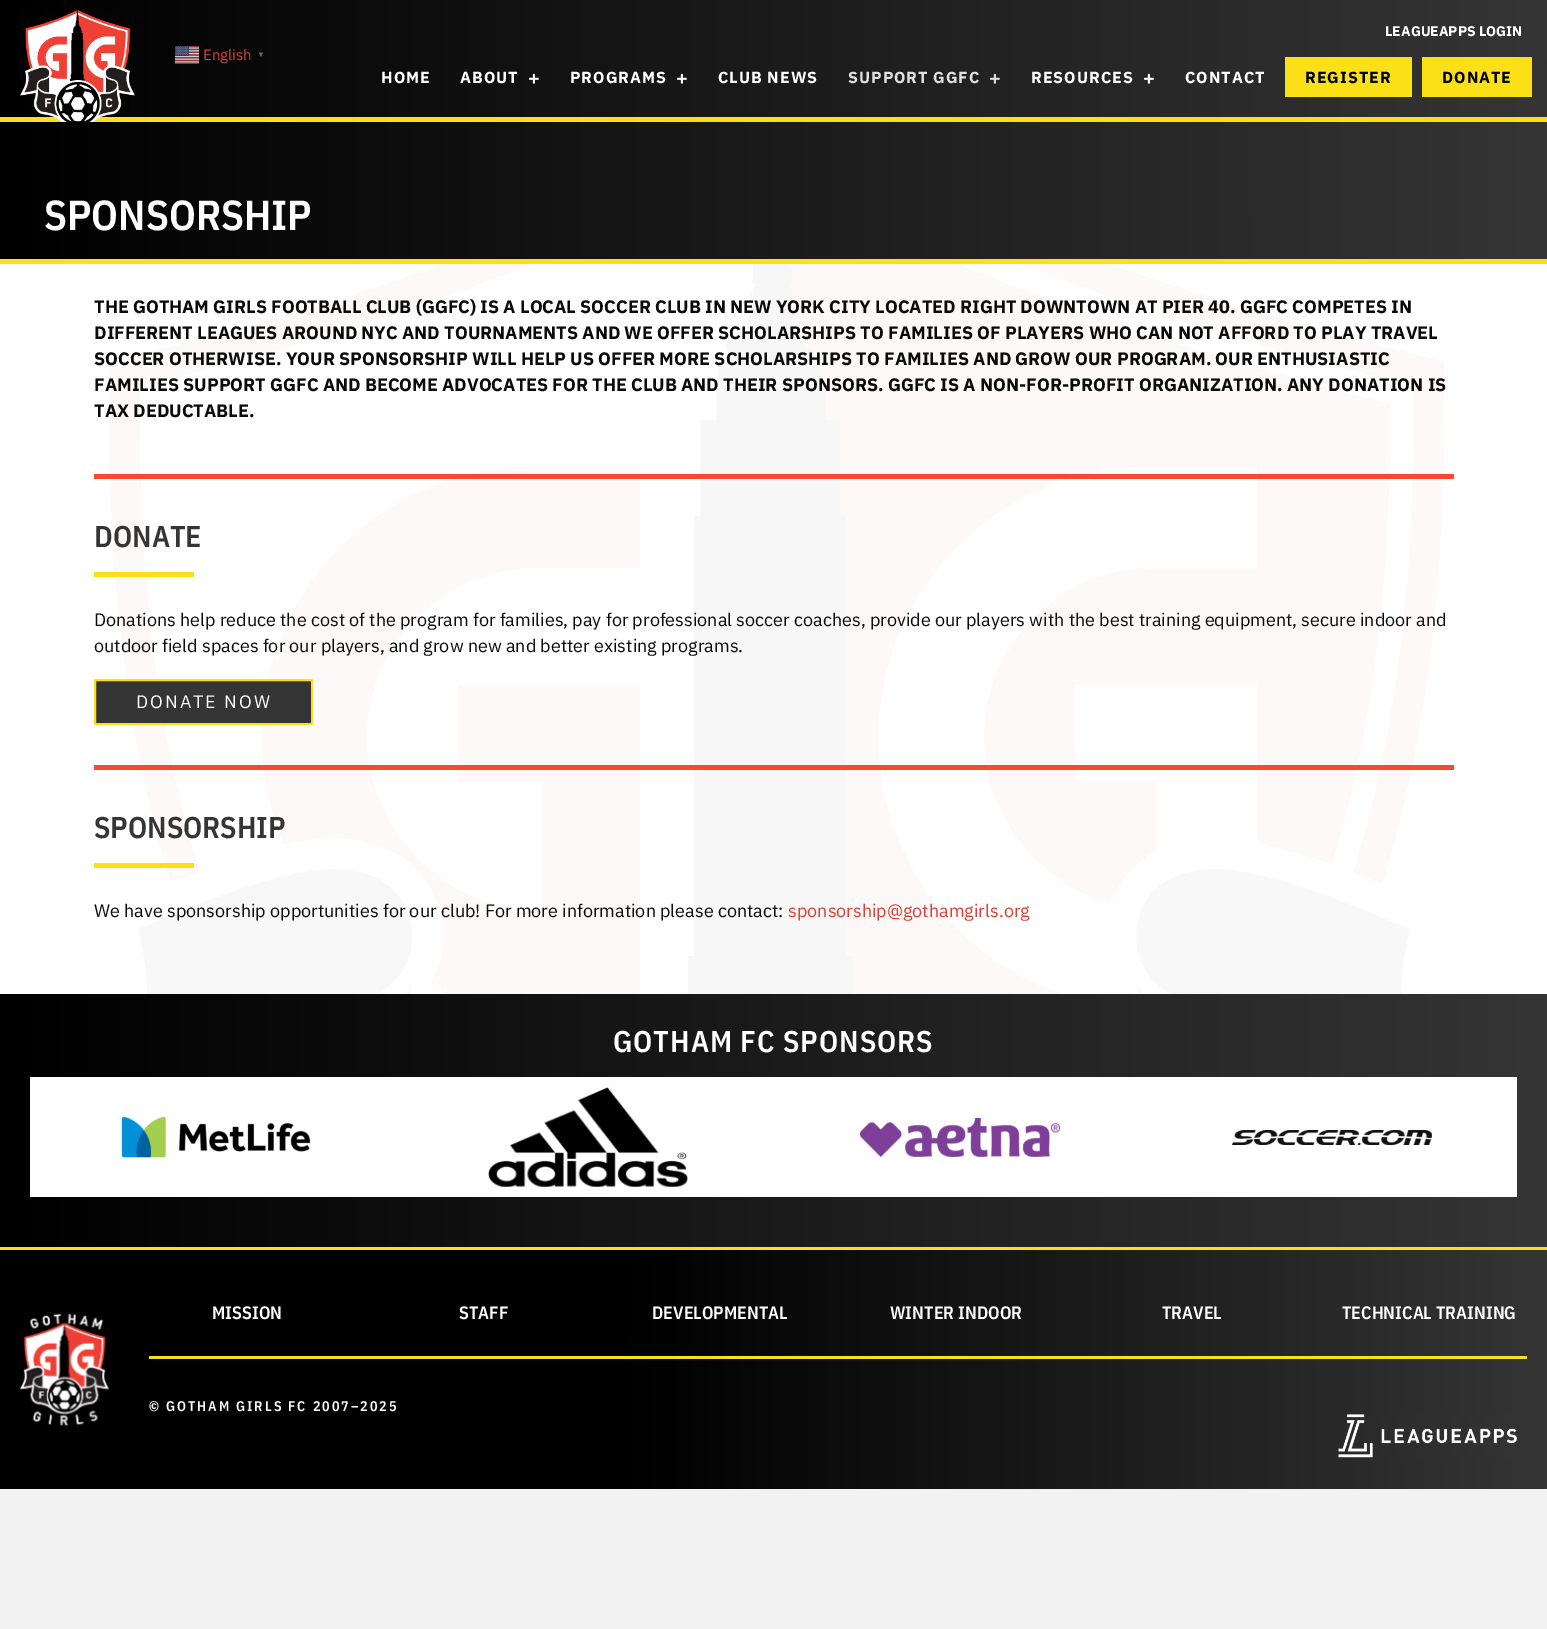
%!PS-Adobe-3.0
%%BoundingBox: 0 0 1547 1629
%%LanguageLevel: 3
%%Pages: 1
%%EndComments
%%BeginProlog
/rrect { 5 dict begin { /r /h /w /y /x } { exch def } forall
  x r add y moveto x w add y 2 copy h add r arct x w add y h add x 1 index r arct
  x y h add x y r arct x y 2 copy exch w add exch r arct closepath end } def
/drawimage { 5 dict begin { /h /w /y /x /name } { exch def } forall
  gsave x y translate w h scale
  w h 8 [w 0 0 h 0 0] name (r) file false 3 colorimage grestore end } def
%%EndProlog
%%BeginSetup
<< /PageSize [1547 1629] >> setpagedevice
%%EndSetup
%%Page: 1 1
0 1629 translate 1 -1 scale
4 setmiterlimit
0.949 setgray
0 0 1547 1629 rectfill
gsave newpath 0 0 moveto 1547 0 lineto 1547 117 lineto 0 117 lineto closepath clip newpath
<< /ShadingType 2 /ColorSpace /DeviceRGB /Coords [0 59 1547 58] /Extend [true true] /Function << /FunctionType 2 /Domain [0 1] /C0 [0 0 0] /C1 [0.208 0.208 0.208] /N 1 >> >> shfill grestore
0.984 0.878 0.09 setrgbcolor
0 117 1547 5 rectfill
(images/1.raw) 20 10 115 112 drawimage
(images/2.raw) 175 46 24 18 drawimage
(images/3.raw) 529 73 10 11 drawimage
(images/4.raw) 677 73 10 11 drawimage
(images/5.raw) 990 73 10 11 drawimage
(images/6.raw) 1144 73 10 11 drawimage
1285 57 127 40 rectfill
1422 57 110 40 rectfill
1 setgray
0 264 1547 730 rectfill
gsave newpath 0 122 moveto 1547 122 lineto 1547 259 lineto 0 259 lineto closepath clip newpath
<< /ShadingType 2 /ColorSpace /DeviceRGB /Coords [0 191 1547 190] /Extend [true true] /Function << /FunctionType 2 /Domain [0 1] /C0 [0 0 0] /C1 [0.208 0.208 0.208] /N 1 >> >> shfill grestore
0.984 0.878 0.09 setrgbcolor
0 259 1547 5 rectfill
(images/7.raw) 109 264 1336 730 drawimage
0.961 0.29 0.188 setrgbcolor
94 474 1360 5 rectfill
0.984 0.878 0.09 setrgbcolor
94 572 100 5 rectfill
0.208 setgray
95 680 217 44 1 rrect gsave fill grestore
0.984 0.878 0.09 setrgbcolor
2 setlinewidth
stroke
0.961 0.29 0.188 setrgbcolor
94 765 1360 5 rectfill
0.984 0.878 0.09 setrgbcolor
94 863 100 5 rectfill
gsave newpath 0 994 moveto 1547 994 lineto 1547 1247 lineto 0 1247 lineto closepath clip newpath
<< /ShadingType 2 /ColorSpace /DeviceRGB /Coords [0 1121 1547 1121] /Extend [true true] /Function << /FunctionType 2 /Domain [0 1] /C0 [0 0 0] /C1 [0.208 0.208 0.208] /N 1 >> >> shfill grestore
0 1247 1547 3 rectfill
1 setgray
30 1077 1487 120 rectfill
(images/8.raw) 121 1116 190 42 drawimage
(images/9.raw) 488 1087 200 100 drawimage
(images/10.raw) 860 1118 200 39 drawimage
(images/11.raw) 1232 1130 200 15 drawimage
gsave newpath 0 1250 moveto 1547 1250 lineto 1547 1489 lineto 0 1489 lineto closepath clip newpath
<< /ShadingType 2 /ColorSpace /DeviceRGB /Coords [0 1370 1547 1370] /Extend [true true] /Function << /FunctionType 3 /Domain [0 1] /Functions [<< /FunctionType 2 /Domain [0 1] /C0 [0 0 0] /C1 [0 0 0] /N 1 >> << /FunctionType 2 /Domain [0 1] /C0 [0 0 0] /C1 [0.208 0.208 0.208] /N 1 >>] /Bounds [0.4] /Encode [0 1 0 1] >> >> shfill grestore
(images/12.raw) 20 1313 89 113 drawimage
0.984 0.878 0.09 setrgbcolor
149 1356 1378 3 rectfill
(images/13.raw) 1338 1414 179 44 drawimage
/IBMPlexSans-Regular [15 0 0 -15 0 0] selectfont
0.859 0.255 0.216 setrgbcolor
203 60 moveto (English) show
/LiberationSans-Bold [8 0 0 -8 0 0] selectfont
0.4 setgray
257 57 moveto (▼) show
/IBMPlexSans-Bold [14 0 0 -14 0 0] selectfont
1 setgray
1385 36 moveto (LEAGUEAPPS LOGIN) show
/IBMPlexSans-Bold [16 0 0 -16 0 0] selectfont
381 83 moveto 1 0 (HOME) ashow
460 83 moveto 1 0 (ABOUT) ashow
570 83 moveto 1 0 (PROGRAMS) ashow
718 83 moveto 1 0 (CLUB NEWS) ashow
0.878 setgray
848 83 moveto 1 0 (SUPPORT GGFC) ashow
1 setgray
1031 83 moveto 1 0 (RESOURCES) ashow
1185 83 moveto 1 0 (CONTACT) ashow
0 setgray
1305 83 moveto 1 0 (REGISTER) ashow
1442 83 moveto 1 0 (DONATE) ashow
/IBMPlexSansCondensed-SemiBold [42 0 0 -42 0 0] selectfont
1 setgray
44 230 moveto (SPONSORSHIP) show
/IBMPlexSans-Bold [18 0 0 -18 0 0] selectfont
0.039 setgray
94 313 moveto (THE GOTHAM GIRLS FOOTBALL CLUB \(GGFC\) IS A LOCAL SOCCER CLUB IN NEW YORK CITY LOCATED RIGHT DOWNTOWN AT PIER 40. GGFC COMPETES IN) show
94 339 moveto (DIFFERENT LEAGUES AROUND NYC AND TOURNAMENTS AND WE OFFER SCHOLARSHIPS TO FAMILIES OF PLAYERS WHO CAN NOT AFFORD TO PLAY TRAVEL) show
94 365 moveto (SOCCER OTHERWISE. YOUR SPONSORSHIP WILL HELP US OFFER MORE SCHOLARSHIPS TO FAMILIES AND GROW OUR PROGRAM. OUR ENTHUSIASTIC) show
94 391 moveto (FAMILIES SUPPORT GGFC AND BECOME ADVOCATES FOR THE CLUB AND THEIR SPONSORS. GGFC IS A NON-FOR-PROFIT ORGANIZATION. ANY DONATION IS) show
94 417 moveto (TAX DEDUCTABLE.) show
/IBMPlexSansCondensed-SemiBold [30 0 0 -30 0 0] selectfont
0.208 setgray
94 547 moveto (DONATE) show
/IBMPlexSans-Regular [18 0 0 -18 0 0] selectfont
0.039 setgray
94 626 moveto (Donations help reduce the cost of the program for families, pay for professional soccer coaches, provide our players with the best training equipment, secure indoor and) show
94 652 moveto (outdoor field spaces for our players, and grow new and better existing programs.) show
1 setgray
136 708 moveto 2 0 (DONATE NOW) ashow
/IBMPlexSansCondensed-SemiBold [30 0 0 -30 0 0] selectfont
0.208 setgray
94 838 moveto (SPONSORSHIP) show
/IBMPlexSans-Regular [18 0 0 -18 0 0] selectfont
0.039 setgray
94 917 moveto (We have sponsorship opportunities for our club! For more information please contact:) show
0.859 0.255 0.216 setrgbcolor
788 917 moveto (sponsorship@gothamgirls.org) show
/IBMPlexSansCondensed-SemiBold [30 0 0 -30 0 0] selectfont
1 setgray
613 1052 moveto 1 0 (GOTHAM FC SPONSORS) ashow
/IBMPlexSansCondensed-SemiBold [18 0 0 -18 0 0] selectfont
212 1319 moveto (MISSION) show
459 1319 moveto (STAFF) show
652 1319 moveto (DEVELOPMENTAL) show
890 1319 moveto (WINTER INDOOR) show
1162 1319 moveto (TRAVEL) show
1342 1319 moveto (TECHNICAL TRAINING) show
/IBMPlexSansCondensed-SemiBold [14 0 0 -14 0 0] selectfont
149 1411 moveto 2 0 (© GOTHAM GIRLS FC 2007–2025) ashow
showpage
%%EOF
